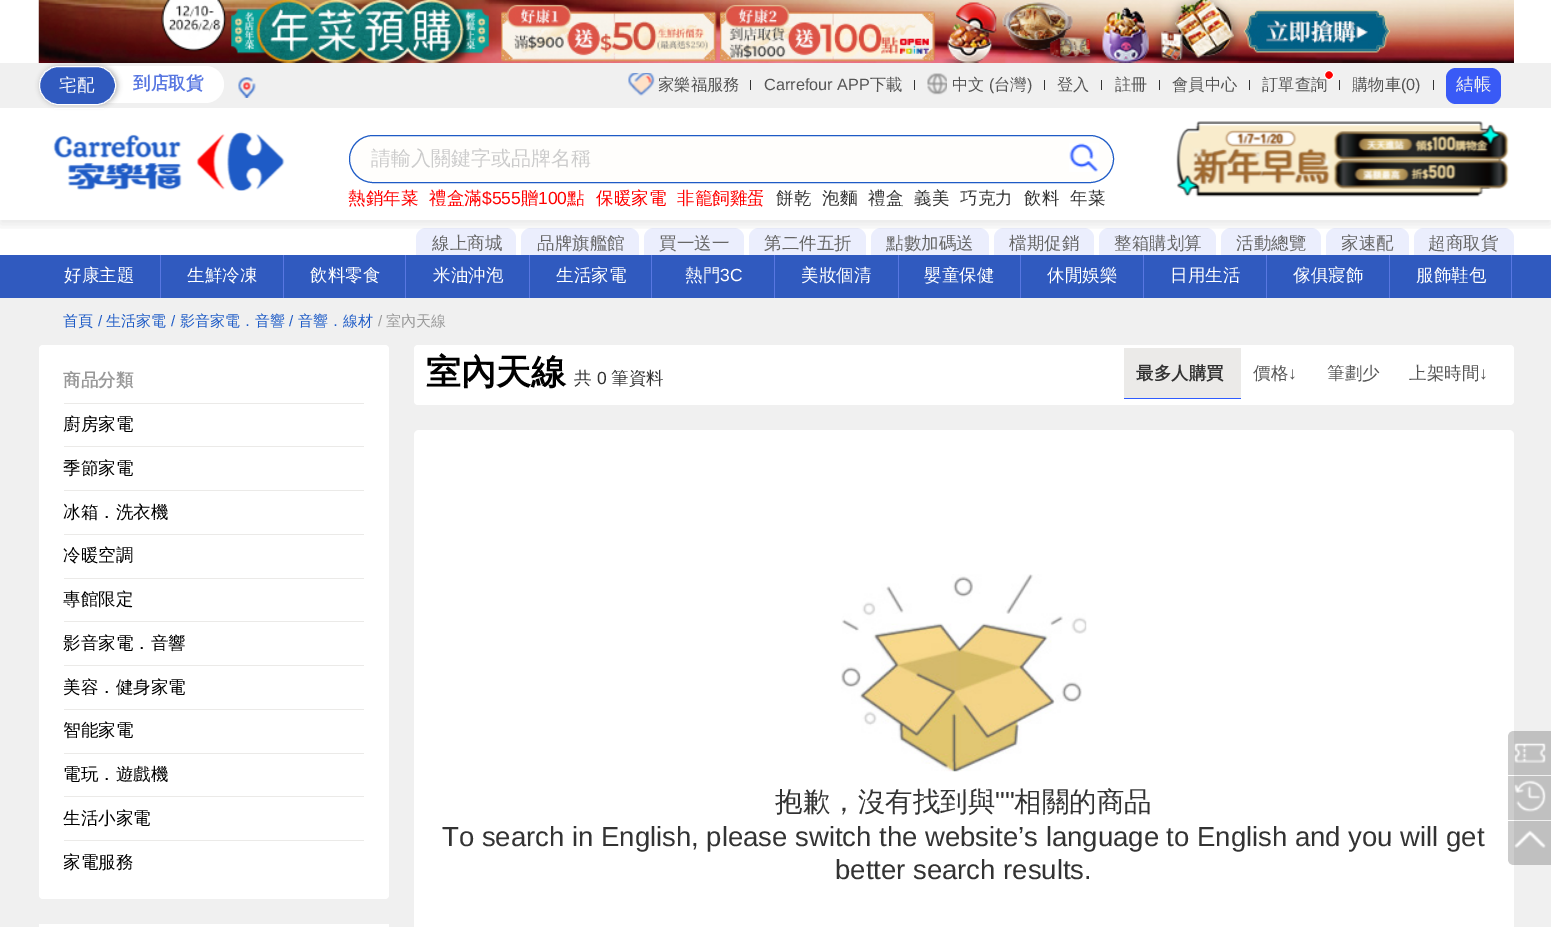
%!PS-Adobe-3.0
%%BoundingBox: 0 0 1551 927
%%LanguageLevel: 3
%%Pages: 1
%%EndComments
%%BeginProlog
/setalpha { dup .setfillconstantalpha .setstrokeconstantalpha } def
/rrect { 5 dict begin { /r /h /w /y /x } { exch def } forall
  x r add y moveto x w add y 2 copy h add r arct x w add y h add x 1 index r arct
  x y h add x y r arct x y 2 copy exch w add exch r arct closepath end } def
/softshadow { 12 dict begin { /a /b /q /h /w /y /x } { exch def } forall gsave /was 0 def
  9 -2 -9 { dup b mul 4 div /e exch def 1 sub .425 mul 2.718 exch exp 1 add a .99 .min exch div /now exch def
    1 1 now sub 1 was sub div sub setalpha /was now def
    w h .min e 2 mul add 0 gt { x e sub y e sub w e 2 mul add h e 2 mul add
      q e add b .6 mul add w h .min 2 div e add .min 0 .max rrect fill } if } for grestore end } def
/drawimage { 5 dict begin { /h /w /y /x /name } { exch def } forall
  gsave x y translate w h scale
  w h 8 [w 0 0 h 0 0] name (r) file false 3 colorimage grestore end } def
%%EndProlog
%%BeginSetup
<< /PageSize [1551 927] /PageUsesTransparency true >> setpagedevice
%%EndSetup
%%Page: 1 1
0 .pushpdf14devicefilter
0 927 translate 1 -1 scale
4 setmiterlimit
0.941 setgray
0 0 1551 927 rectfill
0.753 setgray
1514 776 37 44 rectfill
1 setgray
0 0 1551 255 rectfill
0.922 0.933 0.992 setrgbcolor
newpath 426 228 moveto 506 228 lineto 511.5 228 516 232.5 516 238 curveto 516 258 lineto 416 258 lineto 416 238 lineto 416 232.5 420.5 228 426 228 curveto closepath fill
newpath 531 228 moveto 629 228 lineto 634.5 228 639 232.5 639 238 curveto 639 258 lineto 521 258 lineto 521 238 lineto 521 232.5 525.5 228 531 228 curveto closepath fill
newpath 654 228 moveto 734 228 lineto 739.5 228 744 232.5 744 238 curveto 744 258 lineto 644 258 lineto 644 238 lineto 644 232.5 648.5 228 654 228 curveto closepath fill
newpath 759 228 moveto 856 228 lineto 861.5 228 866 232.5 866 238 curveto 866 258 lineto 749 258 lineto 749 238 lineto 749 232.5 753.5 228 759 228 curveto closepath fill
newpath 881 228 moveto 979 228 lineto 984.5 228 989 232.5 989 238 curveto 989 258 lineto 871 258 lineto 871 238 lineto 871 232.5 875.5 228 881 228 curveto closepath fill
newpath 1004 228 moveto 1084 228 lineto 1089.5 228 1094 232.5 1094 238 curveto 1094 258 lineto 994 258 lineto 994 238 lineto 994 232.5 998.5 228 1004 228 curveto closepath fill
newpath 1109 228 moveto 1206 228 lineto 1211.5 228 1216 232.5 1216 238 curveto 1216 258 lineto 1099 258 lineto 1099 238 lineto 1099 232.5 1103.5 228 1109 228 curveto closepath fill
newpath 1231 228 moveto 1311 228 lineto 1316.5 228 1321 232.5 1321 238 curveto 1321 258 lineto 1221 258 lineto 1221 238 lineto 1221 232.5 1225.5 228 1231 228 curveto closepath fill
newpath 1336 228 moveto 1399 228 lineto 1404.5 228 1409 232.5 1409 238 curveto 1409 258 lineto 1326 258 lineto 1326 238 lineto 1326 232.5 1330.5 228 1336 228 curveto closepath fill
newpath 1424 228 moveto 1504 228 lineto 1509.5 228 1514 232.5 1514 238 curveto 1514 258 lineto 1414 258 lineto 1414 238 lineto 1414 232.5 1418.5 228 1424 228 curveto closepath fill
gsave
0 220 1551 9 rectclip
0 setgray
0 4 1551 220 0 6 0.1 softshadow
grestore
(images/1.raw) 38 0 1476 63 drawimage
0.941 setgray
0 63 1551 45 rectfill
1 setgray
39 66 185 37 18.5 rrect fill
0 setgray
40 66 78 39 19.5 2.5 0.25 softshadow
0.188 0.353 0.749 setrgbcolor
39.5 66.5 76 38 19 rrect gsave fill grestore
1 setgray
stroke
(images/2.raw) 238 77 18 21 drawimage
(images/3.raw) 628 73 27 23 drawimage
0.2 setgray
750 80 1 10 rectfill
914 80 1 10 rectfill
(images/4.raw) 927 73 20 22 drawimage
1044 80 1 10 rectfill
1101 80 1 10 rectfill
1159 80 1 10 rectfill
1249 80 1 10 rectfill
1339 80 1 10 rectfill
1433 80 1 10 rectfill
0.224 0.353 0.965 setrgbcolor
1446 68 55 36 10 rrect fill
1 setgray
54 108 50 1 rectfill
(images/5.raw) 53 131 232 60 drawimage
1 0.996 0.988 setrgbcolor
349.5 135.5 764 47 23.5 rrect gsave fill grestore
0.118 0.357 0.776 setrgbcolor
stroke
(images/6.raw) 1069 143 30 29 drawimage
(images/7.raw) 1176 121 333 76 drawimage
0.188 0.353 0.749 setrgbcolor
0 255 1551 43 rectfill
0.345 0.467 0.882 setrgbcolor
160 255 1 43 rectfill
283 255 1 43 rectfill
405 255 1 43 rectfill
529 255 1 43 rectfill
651 255 1 43 rectfill
774 255 1 43 rectfill
898 255 1 43 rectfill
1020 255 1 43 rectfill
1143 255 1 43 rectfill
1266 255 1 43 rectfill
1389 255 1 43 rectfill
1511 255 1 43 rectfill
1 setgray
39 345 350 554 4 rrect fill
0.922 0.918 0.91 setrgbcolor
64 403 300 1 rectfill
64 446 300 1 rectfill
64 490 300 1 rectfill
64 534 300 1 rectfill
64 578 300 1 rectfill
64 621 300 1 rectfill
64 665 300 1 rectfill
64 709 300 1 rectfill
64 753 300 1 rectfill
64 796 300 1 rectfill
64 840 300 1 rectfill
1 setgray
39 924 350 3 rectfill
414 345 1100 60 4 rrect fill
0.922 0.918 0.91 setrgbcolor
1124 348 117 50 rectfill
0.18 0.357 1 setrgbcolor
1124 398 117 1 rectfill
1 setgray
414 430 1100 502 5 rrect fill
0.8 setgray
1508 776 6 44 rectfill
(images/8.raw) 841 574 246 198 drawimage
0.2 setalpha
0 setgray
newpath 1514 731 moveto 1551 731 lineto 1551 775 lineto 1508 775 lineto 1508 737 lineto 1508 733.5 1510.5 731 1514 731 curveto closepath fill
1 setalpha
(images/9.raw) 1514 743 32 20 drawimage
(images/10.raw) 1514 780 32 32 drawimage
0.2 setalpha
newpath 1508 821 moveto 1551 821 lineto 1551 865 lineto 1514 865 lineto 1510.5 865 1508 862.5 1508 859 curveto closepath fill
1 setalpha
(images/11.raw) 1514 830 32 18 drawimage
/WenQuanYiZenHei-Medium [17.5 0 0 -17.5 0 0] selectfont
1 setgray
59 91 moveto (宅配) show
/WenQuanYiZenHei-Bold [17.5 0 0 -17.5 0 0] selectfont
0.345 0.467 0.882 setrgbcolor
133 89 moveto (到店取貨) show
/WenQuanYiZenHei-Medium [16.25 0 0 -16.25 0 0] selectfont
0.333 setgray
658 90 moveto (家樂福服務) show
/LiberationSans-Regular [16.25 0 0 -16.25 0 0] selectfont
764 90 moveto (Carrefour APP) show
/WenQuanYiZenHei-Medium [16.25 0 0 -16.25 0 0] selectfont
870 90 moveto (下載) show
952 90 moveto (中文) show
/LiberationSans-Regular [16.25 0 0 -16.25 0 0] selectfont
989 90 moveto (\() show
/WenQuanYiZenHei-Medium [16.25 0 0 -16.25 0 0] selectfont
994 90 moveto (台灣) show
/LiberationSans-Regular [16.25 0 0 -16.25 0 0] selectfont
1027 90 moveto (\)) show
/WenQuanYiZenHei-Medium [16.25 0 0 -16.25 0 0] selectfont
1057 90 moveto (登入) show
1115 90 moveto (註冊) show
1172 90 moveto (會員中心) show
1262 90 moveto (訂單查詢) show
1 0 0 setrgbcolor
newpath 1329 75 4.5 0 360 arc closepath gsave fill grestore
1 setgray
stroke
0.333 setgray
1352 90 moveto (購物車) show
/LiberationSans-Regular [16.25 0 0 -16.25 0 0] selectfont
1401 90 moveto (\(0\)) show
/WenQuanYiZenHei-Medium [17.5 0 0 -17.5 0 0] selectfont
0.941 setgray
1456 90 moveto (結帳) show
/WenQuanYiZenHei-Medium [20 0 0 -20 0 0] selectfont
0.8 setgray
371 165 moveto (請輸入關鍵字或品牌名稱) show
/WenQuanYiZenHei-Medium [17.5 0 0 -17.5 0 0] selectfont
1 0 0 setrgbcolor
348 204 moveto (熱銷年菜) show
429 204 moveto (禮盒滿) show
/LiberationSans-Regular [17.5 0 0 -17.5 0 0] selectfont
482 204 moveto ($555) show
/WenQuanYiZenHei-Medium [17.5 0 0 -17.5 0 0] selectfont
521 204 moveto (贈) show
/LiberationSans-Regular [17.5 0 0 -17.5 0 0] selectfont
538 204 moveto (100) show
/WenQuanYiZenHei-Medium [17.5 0 0 -17.5 0 0] selectfont
567 204 moveto (點) show
596 204 moveto (保暖家電) show
677 204 moveto (非籠飼雞蛋) show
0.2 setgray
776 204 moveto (餅乾) show
822 204 moveto (泡麵) show
868 204 moveto (禮盒) show
914 204 moveto (義美) show
960 204 moveto (巧克力) show
1024 204 moveto (飲料) show
1070 204 moveto (年菜) show
0.4 setgray
432 249 moveto (線上商城) show
537 249 moveto (品牌旗艦館) show
659 249 moveto (買一送一) show
764 249 moveto (第二件五折) show
886 249 moveto (點數加碼送) show
1009 249 moveto (檔期促銷) show
1114 249 moveto (整箱購划算) show
1236 249 moveto (活動總覽) show
1341 249 moveto (家速配) show
1428 249 moveto (超商取貨) show
1 setgray
64 281 moveto (好康主題) show
187 281 moveto (生鮮冷凍) show
310 281 moveto (飲料零食) show
433 281 moveto (米油沖泡) show
556 281 moveto (生活家電) show
685 281 moveto (熱門) show
/LiberationSans-Regular [17.5 0 0 -17.5 0 0] selectfont
720 281 moveto (3C) show
/WenQuanYiZenHei-Medium [17.5 0 0 -17.5 0 0] selectfont
801 281 moveto (美妝個清) show
924 281 moveto (嬰童保健) show
1047 281 moveto (休閒娛樂) show
1170 281 moveto (日用生活) show
1293 281 moveto (傢俱寢飾) show
1416 281 moveto (服飾鞋包) show
/WenQuanYiZenHei-Medium [15 0 0 -15 0 0] selectfont
0.118 0.357 0.776 setrgbcolor
63 326 moveto (首頁) show
/LiberationSans-Regular [15 0 0 -15 0 0] selectfont
98 326 moveto (/) show
/WenQuanYiZenHei-Medium [15 0 0 -15 0 0] selectfont
106 326 moveto (生活家電) show
/LiberationSans-Regular [15 0 0 -15 0 0] selectfont
171 326 moveto (/) show
/WenQuanYiZenHei-Medium [15 0 0 -15 0 0] selectfont
180 326 moveto (影音家電．音響) show
/LiberationSans-Regular [15 0 0 -15 0 0] selectfont
289 326 moveto (/) show
/WenQuanYiZenHei-Medium [15 0 0 -15 0 0] selectfont
298 326 moveto (音響．線材) show
/LiberationSans-Regular [15 0 0 -15 0 0] selectfont
0.6 setgray
378 326 moveto (/) show
/WenQuanYiZenHei-Medium [15 0 0 -15 0 0] selectfont
386 326 moveto (室內天線) show
/WenQuanYiZenHei-Bold [17.5 0 0 -17.5 0 0] selectfont
63 386 moveto (商品分類) show
/WenQuanYiZenHei-Medium [17.5 0 0 -17.5 0 0] selectfont
0 setgray
63 430 moveto (廚房家電) show
63 474 moveto (季節家電) show
63 518 moveto (冰箱．洗衣機) show
63 561 moveto (冷暖空調) show
63 605 moveto (專館限定) show
63 649 moveto (影音家電．音響) show
63 693 moveto (美容．健身家電) show
63 736 moveto (智能家電) show
63 780 moveto (電玩．遊戲機) show
63 824 moveto (生活小家電) show
63 868 moveto (家電服務) show
/WenQuanYiZenHei-Bold [35 0 0 -35 0 0] selectfont
426 384 moveto (室內天線) show
/WenQuanYiZenHei-Medium [17.5 0 0 -17.5 0 0] selectfont
0.2 setgray
574 384 moveto (共) show
/LiberationSans-Regular [17.5 0 0 -17.5 0 0] selectfont
597 384 moveto (0) show
/WenQuanYiZenHei-Medium [17.5 0 0 -17.5 0 0] selectfont
611 384 moveto (筆資料) show
/WenQuanYiZenHei-Bold [17.5 0 0 -17.5 0 0] selectfont
1136 379 moveto (最多人購買) show
/WenQuanYiZenHei-Medium [17.5 0 0 -17.5 0 0] selectfont
0.333 setgray
1253 379 moveto (價格) show
/LiberationSans-Regular [17.5 0 0 -17.5 0 0] selectfont
1288 379 moveto (↓) show
/WenQuanYiZenHei-Medium [17.5 0 0 -17.5 0 0] selectfont
1327 379 moveto (筆劃少) show
1409 379 moveto (上架時間) show
/LiberationSans-Regular [17.5 0 0 -17.5 0 0] selectfont
1479 379 moveto (↓) show
/WenQuanYiZenHei-Medium [27.5 0 0 -27.5 0 0] selectfont
0.2 setgray
775 811 moveto (抱歉，沒有找到與) show
/LiberationSans-Regular [27.5 0 0 -27.5 0 0] selectfont
995 811 moveto ("") show
/WenQuanYiZenHei-Medium [27.5 0 0 -27.5 0 0] selectfont
1014 811 moveto (相關的商品) show
/LiberationSans-Regular [27.5 0 0 -27.5 0 0] selectfont
442 846 moveto (To search in English, please switch the website’s language to English and you will get) show
835 879 moveto (better search results.) show
.poppdf14devicefilter showpage
%%EOF
